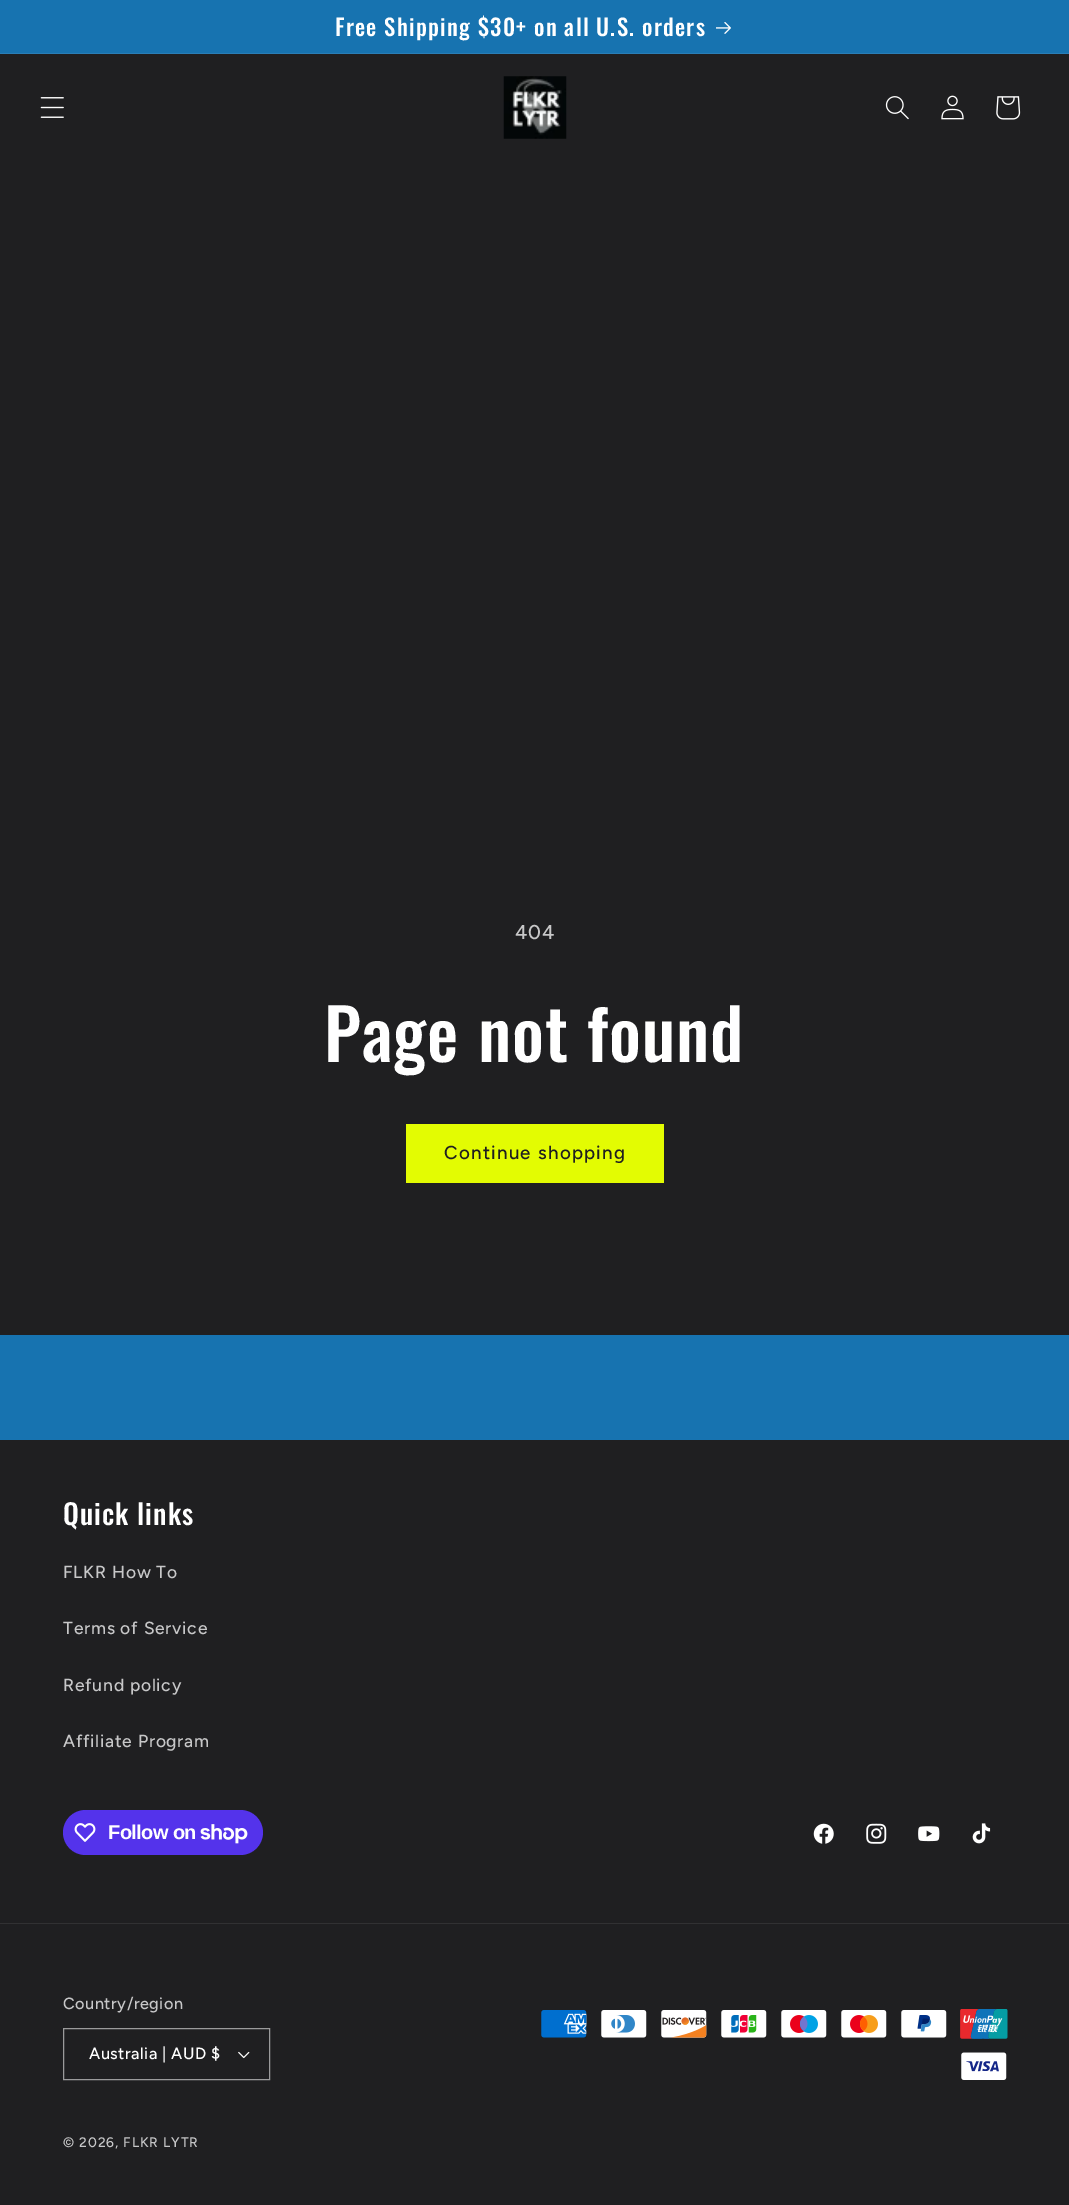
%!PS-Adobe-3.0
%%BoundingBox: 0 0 1069 2205
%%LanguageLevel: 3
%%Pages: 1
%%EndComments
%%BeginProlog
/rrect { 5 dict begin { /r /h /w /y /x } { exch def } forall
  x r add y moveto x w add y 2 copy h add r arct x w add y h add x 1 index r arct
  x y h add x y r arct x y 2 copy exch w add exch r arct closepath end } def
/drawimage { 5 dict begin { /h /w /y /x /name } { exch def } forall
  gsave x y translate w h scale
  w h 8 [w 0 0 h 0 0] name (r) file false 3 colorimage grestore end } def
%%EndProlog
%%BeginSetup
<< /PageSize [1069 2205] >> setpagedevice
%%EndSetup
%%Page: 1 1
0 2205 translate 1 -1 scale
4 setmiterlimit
0.122 0.122 0.129 setrgbcolor
0 0 1069 2205 rectfill
0.09 0.451 0.69 setrgbcolor
0 0 1069 53 rectfill
0.165 0.494 0.714 setrgbcolor
0 53 1069 1 rectfill
(images/1.raw) 716 22 15 12 drawimage
(images/2.raw) 40 97 24 21 drawimage
(images/3.raw) 503 76 64 63 drawimage
(images/4.raw) 885 96 24 24 drawimage
(images/5.raw) 941 95 23 25 drawimage
(images/6.raw) 996 96 25 24 drawimage
0.89 0.988 0.008 setrgbcolor
406 1124 258 59 rectfill
0.09 0.451 0.69 setrgbcolor
0 1335 1069 105 rectfill
0.329 0.2 0.922 setrgbcolor
63 1810 200 45 22.5 rrect fill
(images/7.raw) 74 1823 22 19 drawimage
(images/8.raw) 200 1824 48 20 drawimage
(images/9.raw) 813 1823 21 21 drawimage
(images/10.raw) 866 1823 21 21 drawimage
(images/11.raw) 918 1826 22 16 drawimage
(images/12.raw) 972 1823 19 21 drawimage
0.192 0.192 0.2 setrgbcolor
0 1923 1069 1 rectfill
(images/13.raw) 238 2051 12 8 drawimage
0.604 0.604 0.608 setrgbcolor
63.5 2028.5 206 51 rectstroke
(images/14.raw) 541 2010 46 28 drawimage
(images/15.raw) 601 2010 46 28 drawimage
(images/16.raw) 661 2010 46 28 drawimage
(images/17.raw) 721 2010 46 28 drawimage
(images/18.raw) 781 2010 46 28 drawimage
(images/19.raw) 841 2010 46 28 drawimage
(images/20.raw) 901 2010 46 28 drawimage
(images/21.raw) 960 2009 48 30 drawimage
(images/22.raw) 961 2052 46 28 drawimage
/Oswald-Medium [22.75 0 0 -22.75 0 0] selectfont
1 setgray
335 36 moveto 1.25 0 (Free Shipping $30+ on all U.S. orders) ashow
/Figtree-Medium [20 0 0 -20 0 0] selectfont
0.78 0.78 0.784 setrgbcolor
515 939 moveto 0.75 0 (404) ashow
/Oswald-Medium [70 0 0 -70 0 0] selectfont
1 setgray
324 1062 moveto 1 0 (Page not found) ashow
/Figtree-Medium [18.75 0 0 -18.75 0 0] selectfont
0.122 0.122 0.129 setrgbcolor
444 1159 moveto 1.25 0 (Continue shopping) ashow
/Oswald-Medium [28 0 0 -28 0 0] selectfont
1 setgray
63 1525 moveto 1 0 (Quick links) ashow
/Figtree-Medium [17.5 0 0 -17.5 0 0] selectfont
0.78 0.78 0.784 setrgbcolor
63 1578 moveto 0.75 0 (FLKR How To) ashow
63 1634 moveto 0.75 0 (Terms of Service) ashow
63 1691 moveto 0.75 0 (Refund policy) ashow
63 1747 moveto 0.75 0 (Affiliate Program) ashow
/LiberationSans-Bold [20 0 0 -20 0 0] selectfont
1 setgray
108 1839 moveto -0.6 0 (Follow on) ashow
/Figtree-Medium [16.25 0 0 -16.25 0 0] selectfont
0.78 0.78 0.784 setrgbcolor
63 2009 moveto 0.5 0 (Country/region) ashow
1 setgray
89 2059 moveto 0.5 0 (Australia | AUD $) ashow
/Figtree-Medium [13.75 0 0 -13.75 0 0] selectfont
0.78 0.78 0.784 setrgbcolor
63 2147 moveto 0.9 0 (© 2026, FLKR LYTR) ashow
showpage
%%EOF
